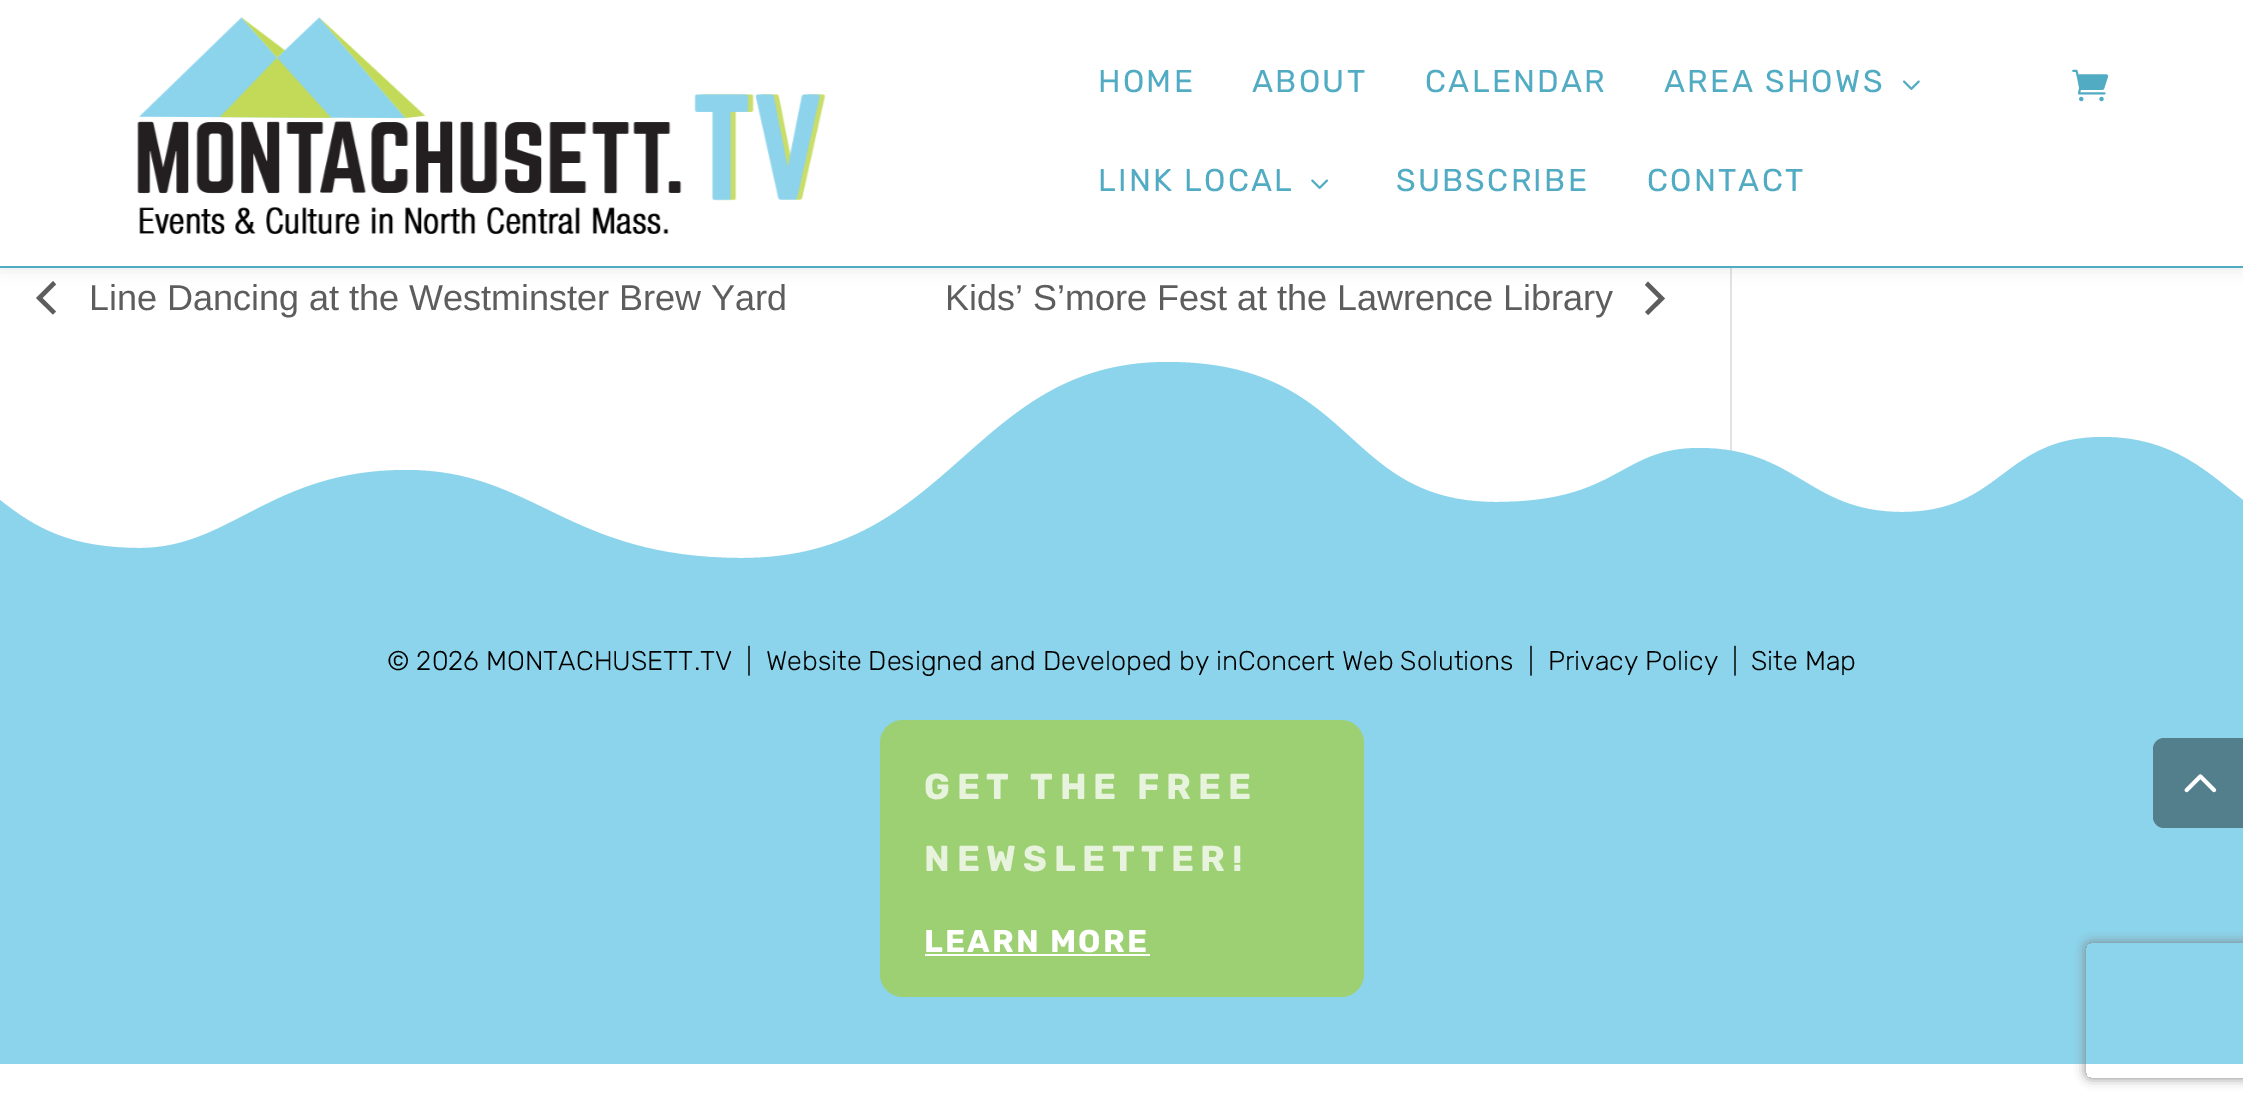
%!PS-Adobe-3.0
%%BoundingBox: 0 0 2243 1108
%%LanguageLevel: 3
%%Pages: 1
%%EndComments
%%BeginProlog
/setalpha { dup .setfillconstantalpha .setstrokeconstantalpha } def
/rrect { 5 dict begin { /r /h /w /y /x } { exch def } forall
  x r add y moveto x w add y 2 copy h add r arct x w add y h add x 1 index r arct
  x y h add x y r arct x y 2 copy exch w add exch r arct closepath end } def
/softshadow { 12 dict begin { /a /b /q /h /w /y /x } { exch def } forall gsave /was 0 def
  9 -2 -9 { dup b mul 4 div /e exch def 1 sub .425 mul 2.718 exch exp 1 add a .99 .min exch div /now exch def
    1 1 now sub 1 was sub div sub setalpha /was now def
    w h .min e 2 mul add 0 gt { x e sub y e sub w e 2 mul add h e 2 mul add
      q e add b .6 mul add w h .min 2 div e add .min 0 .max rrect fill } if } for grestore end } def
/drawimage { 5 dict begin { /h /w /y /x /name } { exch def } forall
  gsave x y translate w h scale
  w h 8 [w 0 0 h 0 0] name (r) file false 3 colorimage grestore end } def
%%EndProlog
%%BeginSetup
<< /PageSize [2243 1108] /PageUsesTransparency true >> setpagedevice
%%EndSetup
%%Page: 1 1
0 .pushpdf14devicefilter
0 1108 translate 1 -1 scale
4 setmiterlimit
1 setgray
0 0 2243 1108 rectfill
0.365 setgray
newpath 56 311.5 moveto 53 314.5 lineto 36 298 lineto 53 281 lineto 56 284.5 lineto 42.5 298 lineto closepath fill
newpath 1645 285 moveto 1648 281.5 lineto 1665 298.5 lineto 1648 315 lineto 1645 312 lineto 1658.5 298.5 lineto closepath fill
0.886 setgray
1730 268 2 183 rectfill
0 setgray
0 0 2243 268 0 8 0.1 softshadow
1 setgray
0 0 2243 266 rectfill
0.318 0.671 0.765 setrgbcolor
0 266 2243 2 rectfill
(images/1.raw) 137 17 689 217 drawimage
(images/2.raw) 1903 80 17 10 drawimage
(images/3.raw) 1311 179 17 10 drawimage
(images/4.raw) 2072 69 37 33 drawimage
0.545 0.831 0.922 setrgbcolor
newpath 2243 500 moveto 2208 473 2173 437 2103 437 curveto 2002 437 2003 512 1902 512 curveto 1808 512 1797 448 1699 448 curveto 1619 448 1620 502 1496 502 curveto 1340 502 1358 362 1167 362 curveto 971 362 953 558 742 558 curveto 566 558 535 470 406 470 curveto 271 470 231 548 140 548 curveto 70 548 35 528 0 500 curveto 0 587 lineto 2243 587 lineto closepath fill
0 587 2243 477 rectfill
0.616 0.816 0.451 setrgbcolor
880 720 484 277 23 rrect fill
1 setgray
925 954 225 2 rectfill
0.325 0.498 0.553 setrgbcolor
newpath 2164 738 moveto 2243 738 lineto 2243 828 lineto 2164 828 lineto 2158 828 2153 823 2153 817 curveto 2153 749 lineto 2153 743 2158 738 2164 738 curveto closepath fill
(images/5.raw) 2184 774 33 19 drawimage
gsave
newpath 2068 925 moveto 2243 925 lineto 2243 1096 lineto 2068 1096 lineto closepath 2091 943 moveto 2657 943 lineto 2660 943 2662 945 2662 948 curveto 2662 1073 lineto 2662 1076 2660 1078 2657 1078 curveto 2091 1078 lineto 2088 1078 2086 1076 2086 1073 curveto 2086 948 lineto 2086 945 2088 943 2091 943 curveto closepath eoclip newpath
0.502 setgray
2086 943 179 135 5 5.5 1 softshadow
grestore
/Rubik-Regular [31.5 0 0 -31.5 0 0] selectfont
0.318 0.671 0.765 setrgbcolor
1098 92 moveto 2.25 0 (HOME) ashow
1252 92 moveto 2.25 0 (ABOUT) ashow
1425 92 moveto 2.25 0 (CALENDAR) ashow
1664 92 moveto 2.25 0 (AREA SHOWS) ashow
1098 191 moveto 2.25 0 (LINK LOCAL) ashow
1396 191 moveto 2.25 0 (SUBSCRIBE) ashow
1647 191 moveto 2.25 0 (CONTACT) ashow
/LiberationSans-Regular [36 0 0 -36 0 0] selectfont
0.365 setgray
89 310 moveto (Line Dancing at the Westminster Brew Yard) show
945 310 moveto (Kids’ S’more Fest at the Lawrence Library) show
/Rubik-Light [27 0 0 -27 0 0] selectfont
0 setgray
387 670 moveto (© 2026 MONTACHUSETT.TV  |  Website Designed and Developed by inConcert Web Solutions) show
1528 670 moveto (|) show
1548 670 moveto (Privacy Policy) show
1732 670 moveto (|) show
1751 670 moveto (Site Map) show
/Rubik-Bold [36 0 0 -36 0 0] selectfont
0.906 0.953 0.863 setrgbcolor
924 799 moveto 6.75 0 (GET THE FREE) ashow
924 871 moveto 6.75 0 (NEWSLETTER!) ashow
/Rubik-Bold [31.5 0 0 -31.5 0 0] selectfont
1 setgray
924 952 moveto 2.25 0 (LEARN MORE) ashow
.poppdf14devicefilter showpage
%%EOF
